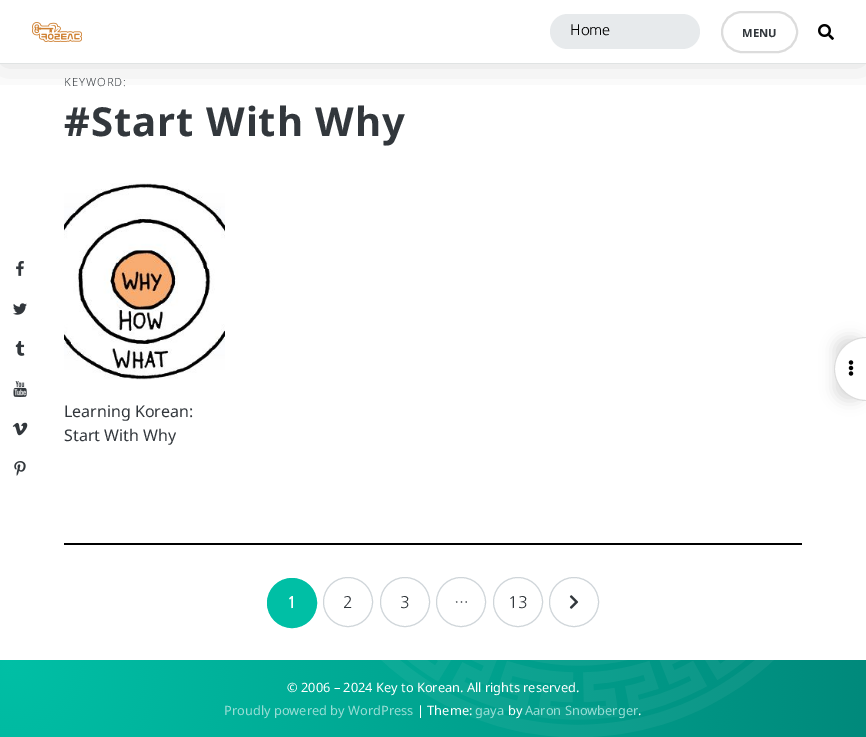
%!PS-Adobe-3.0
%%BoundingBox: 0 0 866 737
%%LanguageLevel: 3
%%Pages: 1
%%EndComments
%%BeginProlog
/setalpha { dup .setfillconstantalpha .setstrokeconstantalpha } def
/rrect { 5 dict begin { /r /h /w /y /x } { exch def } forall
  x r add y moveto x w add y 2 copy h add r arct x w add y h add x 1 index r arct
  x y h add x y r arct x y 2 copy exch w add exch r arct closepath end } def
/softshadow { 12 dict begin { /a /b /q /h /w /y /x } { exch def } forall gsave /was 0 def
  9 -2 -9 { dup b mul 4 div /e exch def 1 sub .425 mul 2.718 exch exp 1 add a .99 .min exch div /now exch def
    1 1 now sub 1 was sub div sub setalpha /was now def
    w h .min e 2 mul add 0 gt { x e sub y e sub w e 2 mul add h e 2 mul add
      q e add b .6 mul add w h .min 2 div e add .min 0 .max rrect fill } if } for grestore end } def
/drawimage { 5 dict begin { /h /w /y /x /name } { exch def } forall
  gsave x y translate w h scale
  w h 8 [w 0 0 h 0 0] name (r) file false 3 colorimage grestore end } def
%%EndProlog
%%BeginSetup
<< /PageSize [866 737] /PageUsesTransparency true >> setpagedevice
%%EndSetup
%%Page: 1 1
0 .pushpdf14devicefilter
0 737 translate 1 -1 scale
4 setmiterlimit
1 setgray
0 0 866 737 rectfill
(images/1.raw) 16 261 8 15 drawimage
(images/2.raw) 13 303 14 12 drawimage
(images/3.raw) 15 341 10 15 drawimage
(images/4.raw) 13 381 14 16 drawimage
(images/5.raw) 12 422 16 14 drawimage
(images/6.raw) 14 461 12 15 drawimage
gsave
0 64 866 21 rectclip
0 setgray
0 0 866 64 0 20 0.14 softshadow
grestore
0.878 0.89 0.89 setrgbcolor
0 63 866 1 rectfill
(images/7.raw) 32 22 50 20 drawimage
0.906 0.918 0.925 setrgbcolor
550 14 150 35 17.5 rrect fill
0.863 setgray
2 setlinewidth
722 12 75 40 20 rrect stroke
(images/8.raw) 818 24 16 16 drawimage
(images/9.raw) 64 183 161 197 drawimage
0 setgray
64 543 738 2 rectfill
0 0.749 0.647 setrgbcolor
newpath 292 603 24.5 0 360 arc closepath gsave fill grestore
1 setlinewidth
stroke
0.812 0.835 0.851 setrgbcolor
newpath 348 602 24.5 0 360 arc closepath stroke
newpath 405 602 24.5 0 360 arc closepath stroke
newpath 461 602 24.5 0 360 arc closepath stroke
newpath 518 602 24.5 0 360 arc closepath stroke
newpath 574 602 24.5 0 360 arc closepath stroke
(images/10.raw) 569 595 10 14 drawimage
0 setgray
834 337 32 64 32 7 0.14 softshadow
1 setgray
newpath 866 337 moveto 866 401 lineto 848.5 401 834 386.5 834 369 curveto 834 351.5 848.5 337 866 337 curveto closepath fill
0.863 setgray
newpath 866 337 moveto 866 401 lineto 848 401 834 387 834 369 curveto 834 351 848 337 866 337 curveto closepath 866 338 moveto 866 400 lineto 849 400 835 386 835 369 curveto 835 352 849 338 866 338 curveto closepath eofill
(images/11.raw) 848 360 6 16 drawimage
(images/12.raw) 0 660 866 77 drawimage
/NanumGothic-Regular [14.5 0 0 -14.5 0 0] selectfont
0 setgray
570 35 moveto (Home) show
/NotoSans-Bold [11.25 0 0 -11.25 0 0] selectfont
0.196 0.216 0.235 setrgbcolor
742 37 moveto (MENU) show
/NotoSans-Light [11.25 0 0 -11.25 0 0] selectfont
64 86 moveto 1 0 (KEYWORD:) ashow
/NotoSans-Bold [40 0 0 -40 0 0] selectfont
64 136 moveto 1 0 (#Start With Why) ashow
/NotoSans-Regular [16 0 0 -16 0 0] selectfont
64 417 moveto (Learning Korean:) show
64 441 moveto (Start With Why) show
/NanumGothic-Bold [16 0 0 -16 0 0] selectfont
1 setgray
287 608 moveto (1) show
/NanumGothic-Regular [16 0 0 -16 0 0] selectfont
0.196 0.216 0.235 setrgbcolor
343 608 moveto (2) show
400 608 moveto (3) show
454 608 moveto (…) show
508 608 moveto (13) show
/NotoSans-Regular [12.8 0 0 -12.8 0 0] selectfont
1 setgray
287 692 moveto (© 2006 – 2024 Key to Korean. All rights reserved.) show
0.6 0.867 0.835 setrgbcolor
224 715 moveto (Proudly powered by WordPress) show
1 setgray
417 715 moveto (| Theme:) show
0.6 0.867 0.835 setrgbcolor
475 715 moveto (gaya) show
1 setgray
508 715 moveto (by) show
0.6 0.867 0.835 setrgbcolor
525 715 moveto (Aaron Snowberger) show
1 setgray
638 715 moveto (.) show
.poppdf14devicefilter showpage
%%EOF
